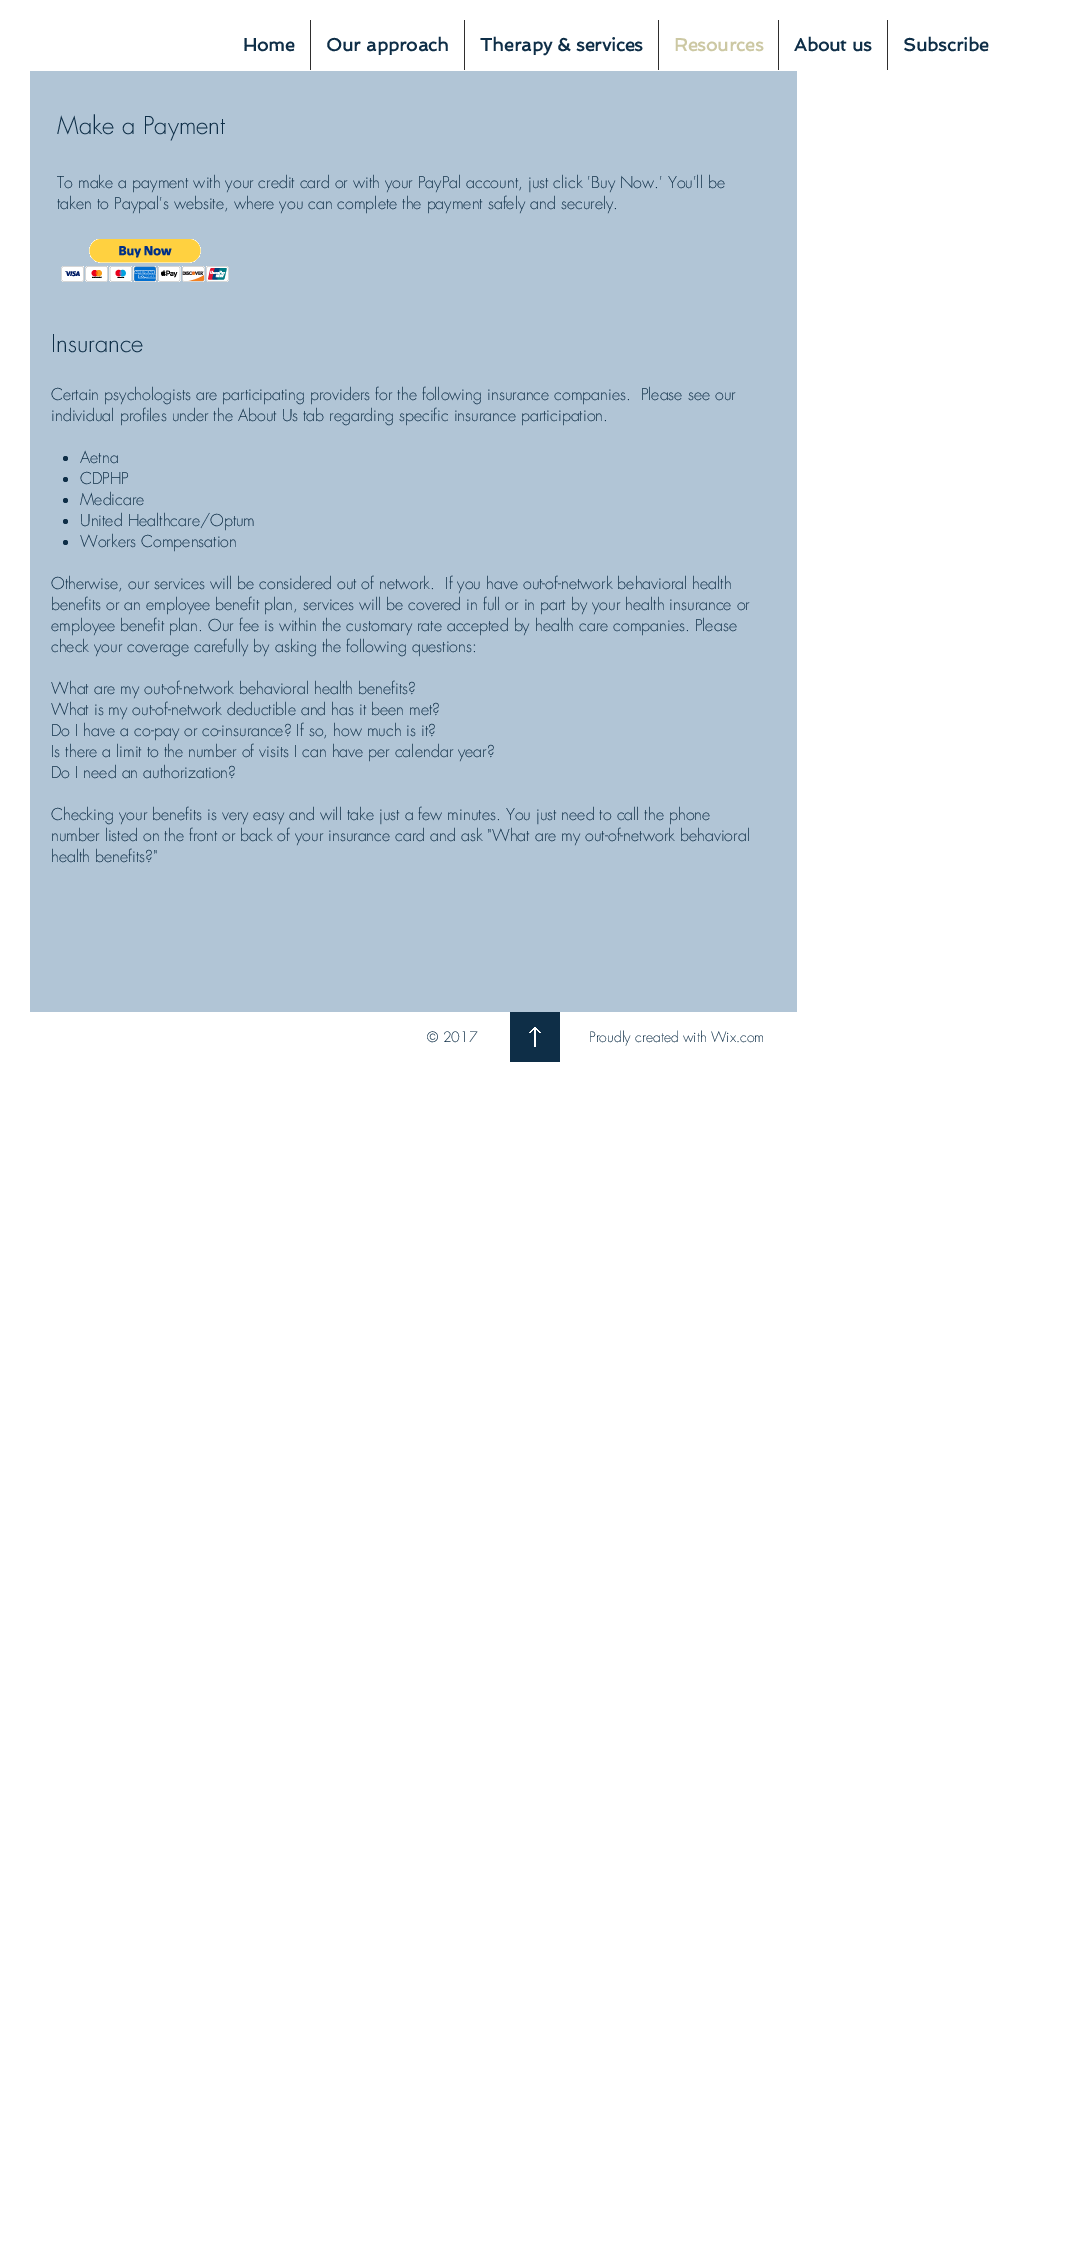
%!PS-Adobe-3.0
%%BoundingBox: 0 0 1072 2244
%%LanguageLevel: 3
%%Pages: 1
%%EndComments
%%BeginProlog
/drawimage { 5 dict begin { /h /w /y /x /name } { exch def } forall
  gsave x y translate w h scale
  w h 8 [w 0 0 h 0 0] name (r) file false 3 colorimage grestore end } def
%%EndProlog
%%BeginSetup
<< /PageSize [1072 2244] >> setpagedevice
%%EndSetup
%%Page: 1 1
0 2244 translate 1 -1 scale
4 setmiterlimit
1 setgray
0 0 1072 2244 rectfill
0.184 0.18 0.18 setrgbcolor
310 20 1 50 rectfill
464 20 1 50 rectfill
658 20 1 50 rectfill
778 20 1 50 rectfill
887 20 1 50 rectfill
0.694 0.773 0.839 setrgbcolor
30 71 767 941 rectfill
(images/1.raw) 61 239 168 43 drawimage
0.055 0.18 0.278 setrgbcolor
newpath 65.5 458.5 2.5 0 360 arc closepath fill
newpath 65.5 479.5 2.5 0 360 arc closepath fill
newpath 65.5 500.5 2.5 0 360 arc closepath fill
newpath 65.5 521.5 2.5 0 360 arc closepath fill
newpath 65.5 542.5 2.5 0 360 arc closepath fill
(images/2.raw) 510 1012 50 50 drawimage
/Spinnaker-Bold [18 0 0 -18 0 0] selectfont
243 51 moveto (Home) show
326 51 moveto (Our approach) show
480 51 moveto (Therapy & services) show
0.8 0.784 0.639 setrgbcolor
674 51 moveto (Resources) show
0.055 0.18 0.278 setrgbcolor
794 51 moveto (About us) show
903 51 moveto (Subscribe) show
/futura-Light [24 0 0 -24 0 0] selectfont
57 134 moveto (Make a Payment) show
/futura-Light [16 0 0 -16 0 0] selectfont
57 188 moveto (To make a payment with your credit card or with your PayPal account, just click 'Buy Now.' You'll be) show
57 209 moveto (taken to Paypal's website, where you can complete the payment safely and securely.) show
/futura-Light [24 0 0 -24 0 0] selectfont
51 352 moveto (Insurance) show
/futura-Light [16 0 0 -16 0 0] selectfont
51 400 moveto (Certain psychologists are participating providers for the following insurance companies.  Please see our) show
51 421 moveto (individual profiles under the About Us tab regarding specific insurance participation.) show
80 463 moveto (Aetna) show
80 484 moveto (CDPHP) show
80 505 moveto (Medicare) show
80 526 moveto (United Healthcare/Optum) show
80 547 moveto (Workers Compensation) show
51 589 moveto (Otherwise, our services will be considered out of network.  If you have out-of-network behavioral health) show
51 610 moveto (benefits or an employee benefit plan, services will be covered in full or in part by your health insurance or) show
51 631 moveto (employee benefit plan. Our fee is within the customary rate accepted by health care companies. Please) show
51 652 moveto (check your coverage carefully by asking the following questions:) show
51 694 moveto (What are my out-of-network behavioral health benefits?) show
51 715 moveto (What is my out-of-network deductible and has it been met?) show
51 736 moveto (Do I have a co-pay or co-insurance? If so, how much is it?) show
51 757 moveto (Is there a limit to the number of visits I can have per calendar year?) show
51 778 moveto (Do I need an authorization?) show
51 820 moveto (Checking your benefits is very easy and will take just a few minutes. You just need to call the phone) show
51 841 moveto (number listed on the front or back of your insurance card and ask "What are my out-of-network behavioral) show
51 862 moveto (health benefits?") show
/futura-Light [14 0 0 -14 0 0] selectfont
427 1042 moveto (© 2017) show
589 1042 moveto (Proudly created with Wix.com) show
showpage
%%EOF
